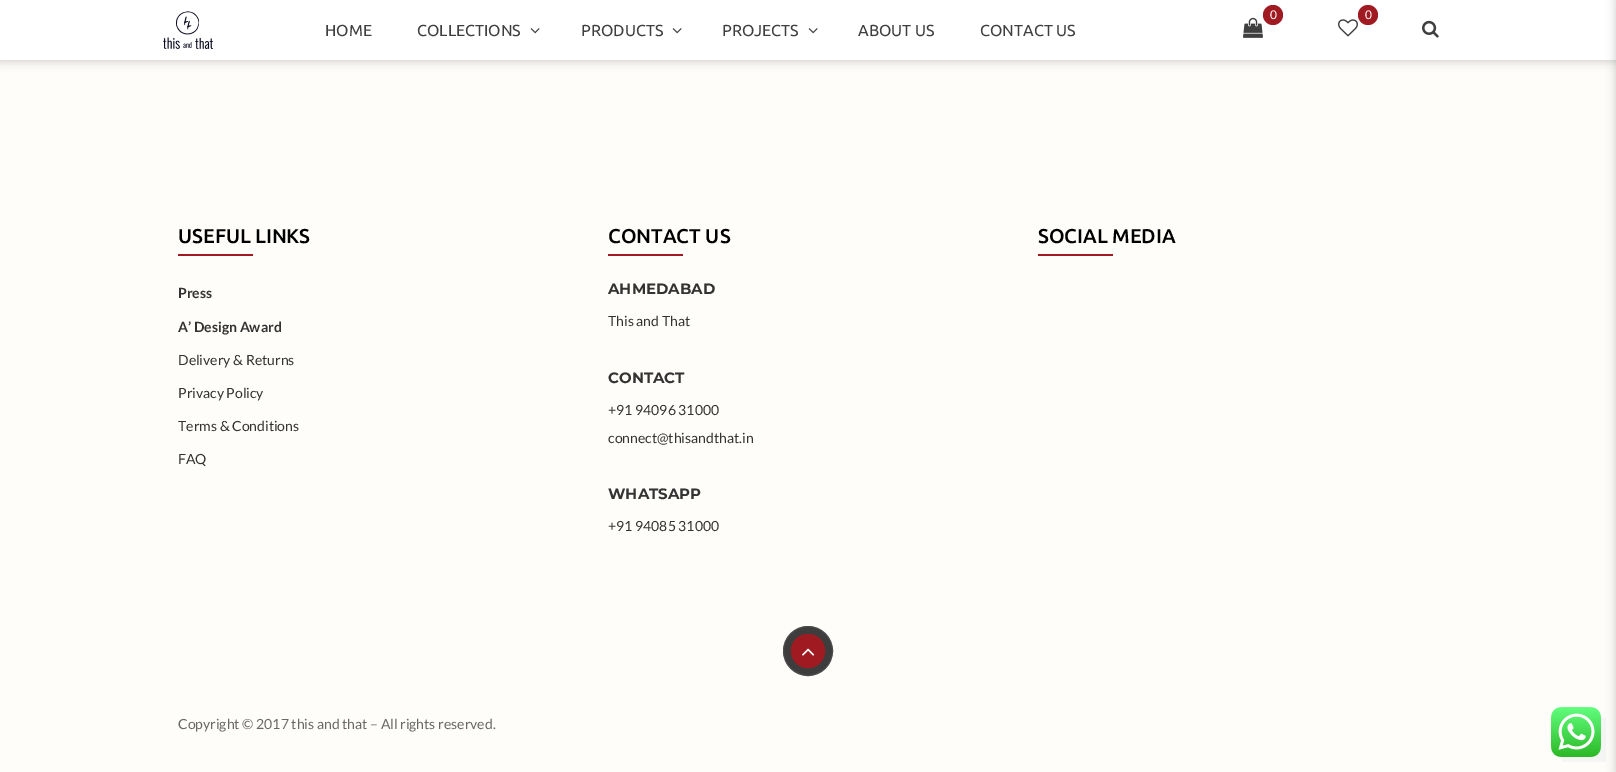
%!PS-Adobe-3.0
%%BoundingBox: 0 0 1616 772
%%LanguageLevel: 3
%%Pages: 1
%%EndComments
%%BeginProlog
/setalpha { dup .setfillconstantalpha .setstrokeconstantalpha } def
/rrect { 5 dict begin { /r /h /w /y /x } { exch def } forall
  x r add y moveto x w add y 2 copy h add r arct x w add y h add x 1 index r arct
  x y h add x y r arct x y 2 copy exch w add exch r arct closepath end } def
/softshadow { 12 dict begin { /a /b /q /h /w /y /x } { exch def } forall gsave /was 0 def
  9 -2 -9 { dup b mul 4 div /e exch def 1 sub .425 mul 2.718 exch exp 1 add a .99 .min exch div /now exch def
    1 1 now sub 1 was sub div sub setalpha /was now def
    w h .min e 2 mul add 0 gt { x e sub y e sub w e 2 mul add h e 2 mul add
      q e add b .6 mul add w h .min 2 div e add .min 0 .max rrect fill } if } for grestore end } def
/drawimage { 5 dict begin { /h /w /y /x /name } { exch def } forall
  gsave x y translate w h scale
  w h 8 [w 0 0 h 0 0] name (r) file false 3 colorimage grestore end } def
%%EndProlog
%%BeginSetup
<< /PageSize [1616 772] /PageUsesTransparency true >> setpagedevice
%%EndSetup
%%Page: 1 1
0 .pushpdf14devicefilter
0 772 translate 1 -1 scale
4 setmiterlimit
0.996 0.992 0.976 setrgbcolor
0 0 1616 772 rectfill
0 setgray
0 1 1616 60 0 5 0.2 softshadow
1 setgray
0 0 1616 60 rectfill
(images/1.raw) 163 11 50 38 drawimage
(images/2.raw) 530 28 10 6 drawimage
(images/2.raw) 672 28 10 6 drawimage
(images/2.raw) 808 28 10 6 drawimage
0.627 0.102 0.129 setrgbcolor
newpath 1273 15 10 0 360 arc closepath fill
(images/3.raw) 1243 17 20 21 drawimage
newpath 1368 15 10 0 360 arc closepath fill
(images/4.raw) 1338 19 20 18 drawimage
(images/5.raw) 1422 20 17 18 drawimage
178 254 75 2 rectfill
608 254 75 2 rectfill
1038 254 75 2 rectfill
0.239 setgray
newpath 808 651 24.5 0 360 arc closepath gsave fill grestore
0.298 setgray
stroke
0.627 0.102 0.129 setrgbcolor
newpath 808 651 17 0 360 arc closepath fill
(images/6.raw) 802 648 13 8 drawimage
newpath 808 651 16.5 0 360 arc closepath stroke
0.961 setgray
1562 718 44 44 rectfill
0 setgray
1616 0 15 772 0 5 0.2 softshadow
(images/7.raw) 1551 707 50 50 drawimage
/Ubuntu-Regular [16 0 0 -16 0 0] selectfont
0.247 setgray
325 36 moveto (HOME) show
417 36 moveto (COLLECTIONS) show
581 36 moveto (PRODUCTS) show
722 36 moveto (PROJECTS) show
858 36 moveto (ABOUT US) show
980 36 moveto (CONTACT US) show
/Lato-Regular [12 0 0 -12 0 0] selectfont
1 setgray
1270 19 moveto (0) show
1365 19 moveto (0) show
/Ubuntu-Medium [20 0 0 -20 0 0] selectfont
0 setgray
178 243 moveto (USEFUL LINKS) show
/Lato-Bold [14 0 0 -14 0 0] selectfont
0.2 setgray
178 298 moveto (Press) show
178 332 moveto (A’ Design Award) show
/Lato-Regular [14 0 0 -14 0 0] selectfont
178 365 moveto (Delivery & Returns) show
178 398 moveto (Privacy Policy) show
178 431 moveto (Terms & Conditions) show
178 464 moveto (FAQ) show
/Ubuntu-Medium [20 0 0 -20 0 0] selectfont
0 setgray
608 243 moveto (CONTACT US) show
/Montserrat-Bold [15 0 0 -15 0 0] selectfont
0.2 setgray
608 294 moveto (AHMEDABAD) show
/Lato-Regular [14 0 0 -14 0 0] selectfont
608 326 moveto (This and That) show
/Montserrat-Bold [15 0 0 -15 0 0] selectfont
608 383 moveto (CONTACT) show
/Lato-Regular [14 0 0 -14 0 0] selectfont
608 415 moveto (+91 94096 31000) show
608 443 moveto (connect@thisandthat.in) show
/Montserrat-Bold [15 0 0 -15 0 0] selectfont
608 499 moveto (WHATSAPP) show
/Lato-Regular [14 0 0 -14 0 0] selectfont
608 531 moveto (+91 94085 31000) show
/Ubuntu-Medium [20 0 0 -20 0 0] selectfont
0 setgray
1038 243 moveto (SOCIAL MEDIA) show
/Lato-Regular [14 0 0 -14 0 0] selectfont
0.408 setgray
178 729 moveto (Copyright © 2017 this and that – All rights reserved.) show
.poppdf14devicefilter showpage
%%EOF
